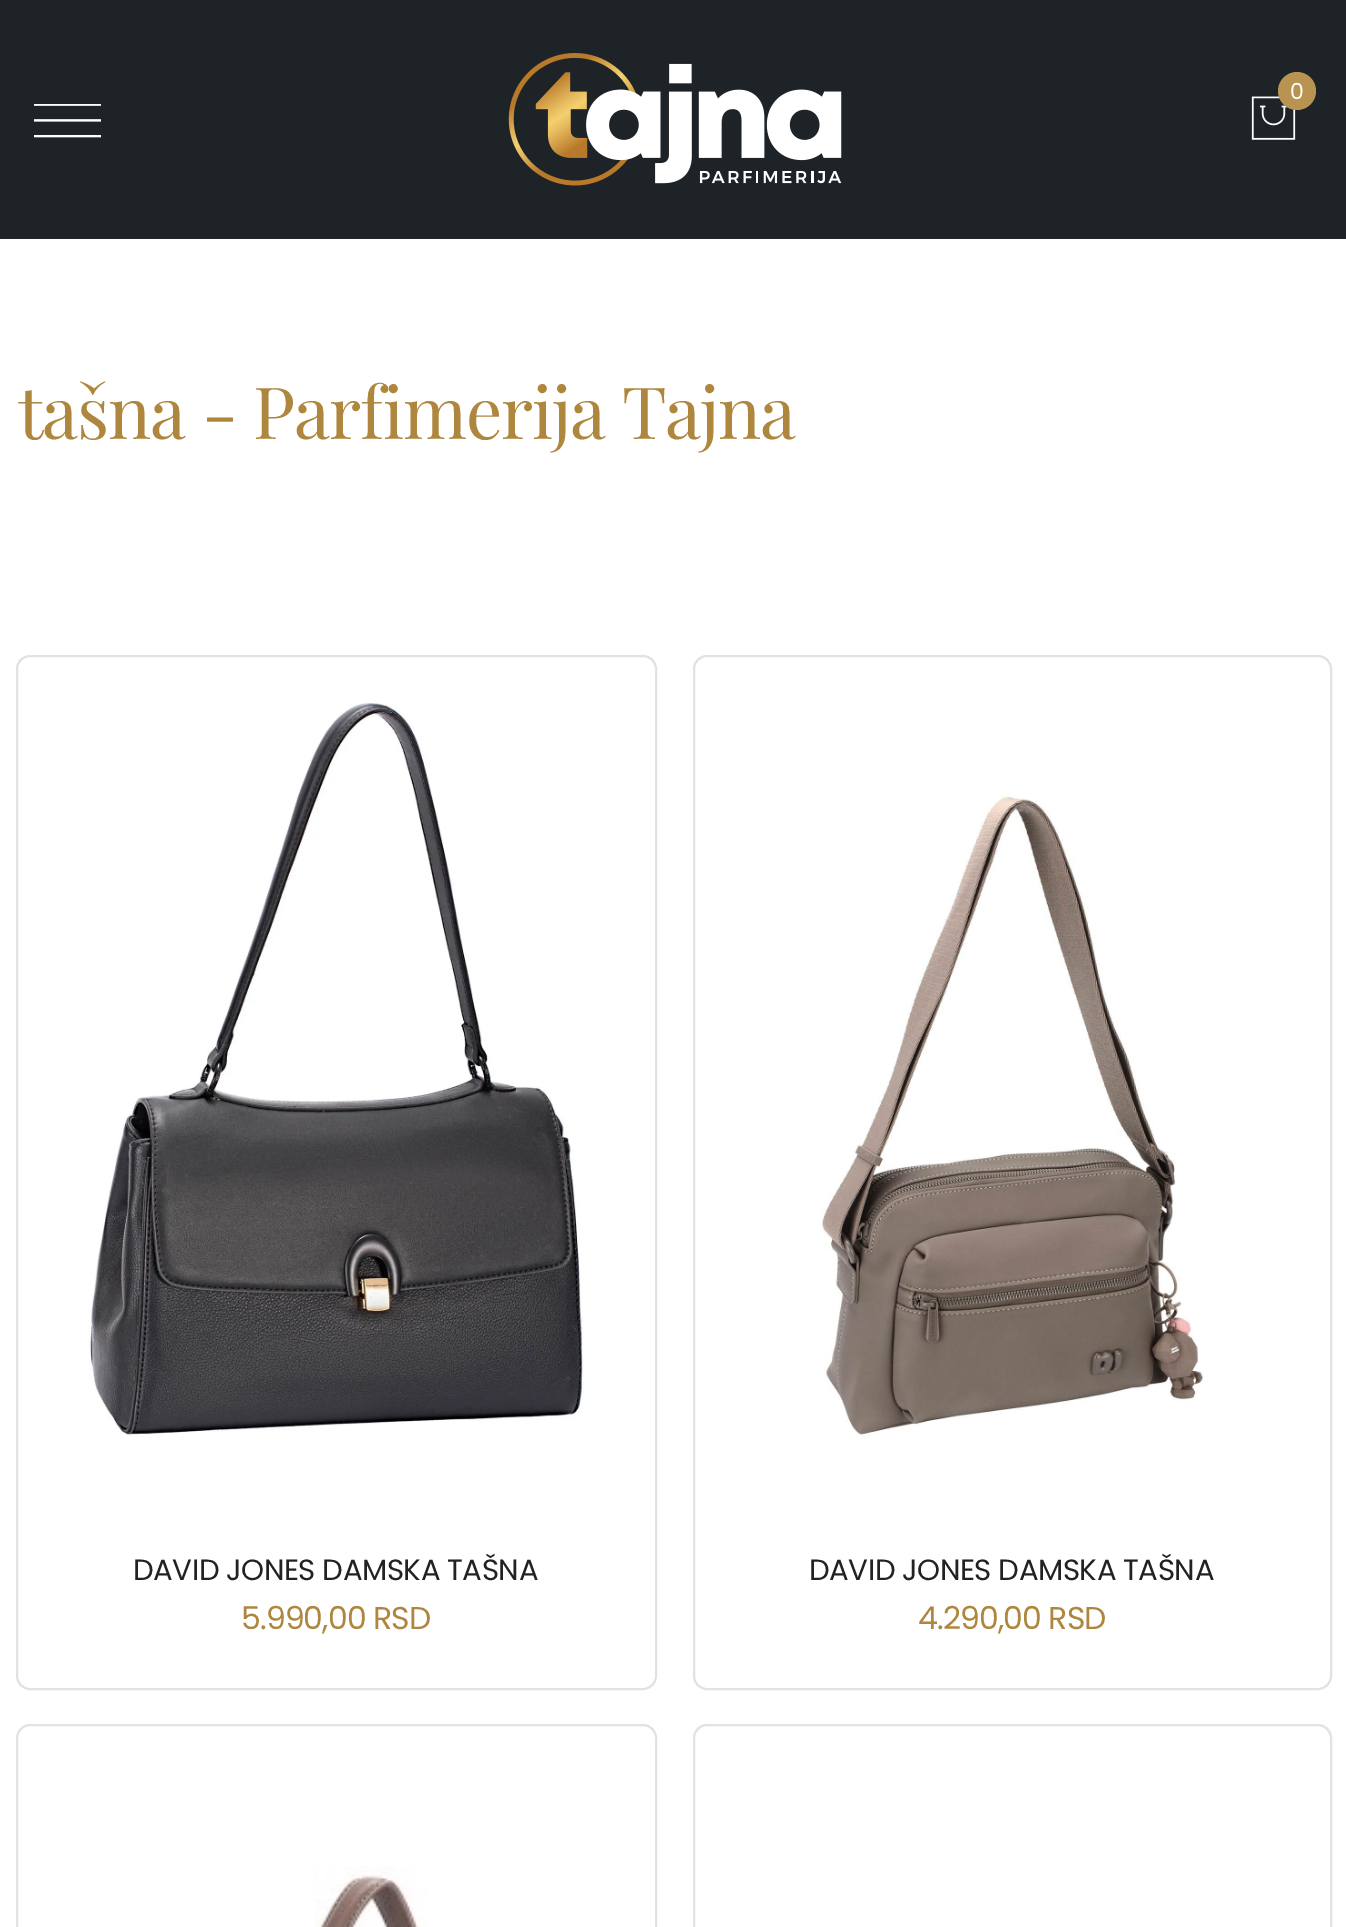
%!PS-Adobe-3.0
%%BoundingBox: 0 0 1346 1927
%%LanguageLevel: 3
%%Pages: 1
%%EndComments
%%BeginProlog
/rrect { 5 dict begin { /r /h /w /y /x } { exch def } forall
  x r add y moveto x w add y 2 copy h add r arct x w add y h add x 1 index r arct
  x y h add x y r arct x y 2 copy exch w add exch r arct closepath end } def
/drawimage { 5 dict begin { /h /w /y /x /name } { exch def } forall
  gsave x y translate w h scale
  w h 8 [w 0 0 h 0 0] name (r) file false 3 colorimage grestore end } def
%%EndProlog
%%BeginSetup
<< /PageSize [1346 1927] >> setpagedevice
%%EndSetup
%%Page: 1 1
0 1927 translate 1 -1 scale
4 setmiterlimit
1 setgray
0 0 1346 1927 rectfill
0.114 0.137 0.153 setrgbcolor
0 0 1346 239 rectfill
(images/1.raw) 508 53 334 133 drawimage
(images/2.raw) 1251 96 45 44 drawimage
0.725 0.576 0.318 setrgbcolor
newpath 1297 91 19 0 360 arc closepath fill
(images/3.raw) 34 104 67 34 drawimage
0.886 setgray
2 setlinewidth
17 656 639 1033 13 rrect stroke
(images/4.raw) 88 703 496 734 drawimage
694 656 637 1033 13 rrect stroke
(images/5.raw) 820 792 384 644 drawimage
17 1725 639 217 13 rrect stroke
(images/6.raw) 314 1866 114 61 drawimage
694 1725 637 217 13 rrect stroke
/Poppins-Regular [22 0 0 -22 0 0] selectfont
1 setgray
1290 99 moveto (0) show
/PlayfairDisplay-Regular [72 0 0 -72 0 0] selectfont
0.686 0.525 0.239 setrgbcolor
18 439 moveto -1.1 0 (tašna - Parfimerija Tajna) ashow
/Poppins-Regular [29.25 0 0 -29.25 0 0] selectfont
0.133 setgray
133 1580 moveto -0.45 0 (DAVID JONES DAMSKA TAŠNA) ashow
/Poppins-Regular [31.5 0 0 -31.5 0 0] selectfont
0.686 0.525 0.239 setrgbcolor
241 1629 moveto -0.9 0 (5.990,00 RSD) ashow
/Poppins-Regular [29.25 0 0 -29.25 0 0] selectfont
0.133 setgray
809 1580 moveto -0.45 0 (DAVID JONES DAMSKA TAŠNA) ashow
/Poppins-Regular [31.5 0 0 -31.5 0 0] selectfont
0.686 0.525 0.239 setrgbcolor
918 1629 moveto -0.9 0 (4.290,00 RSD) ashow
showpage
%%EOF
